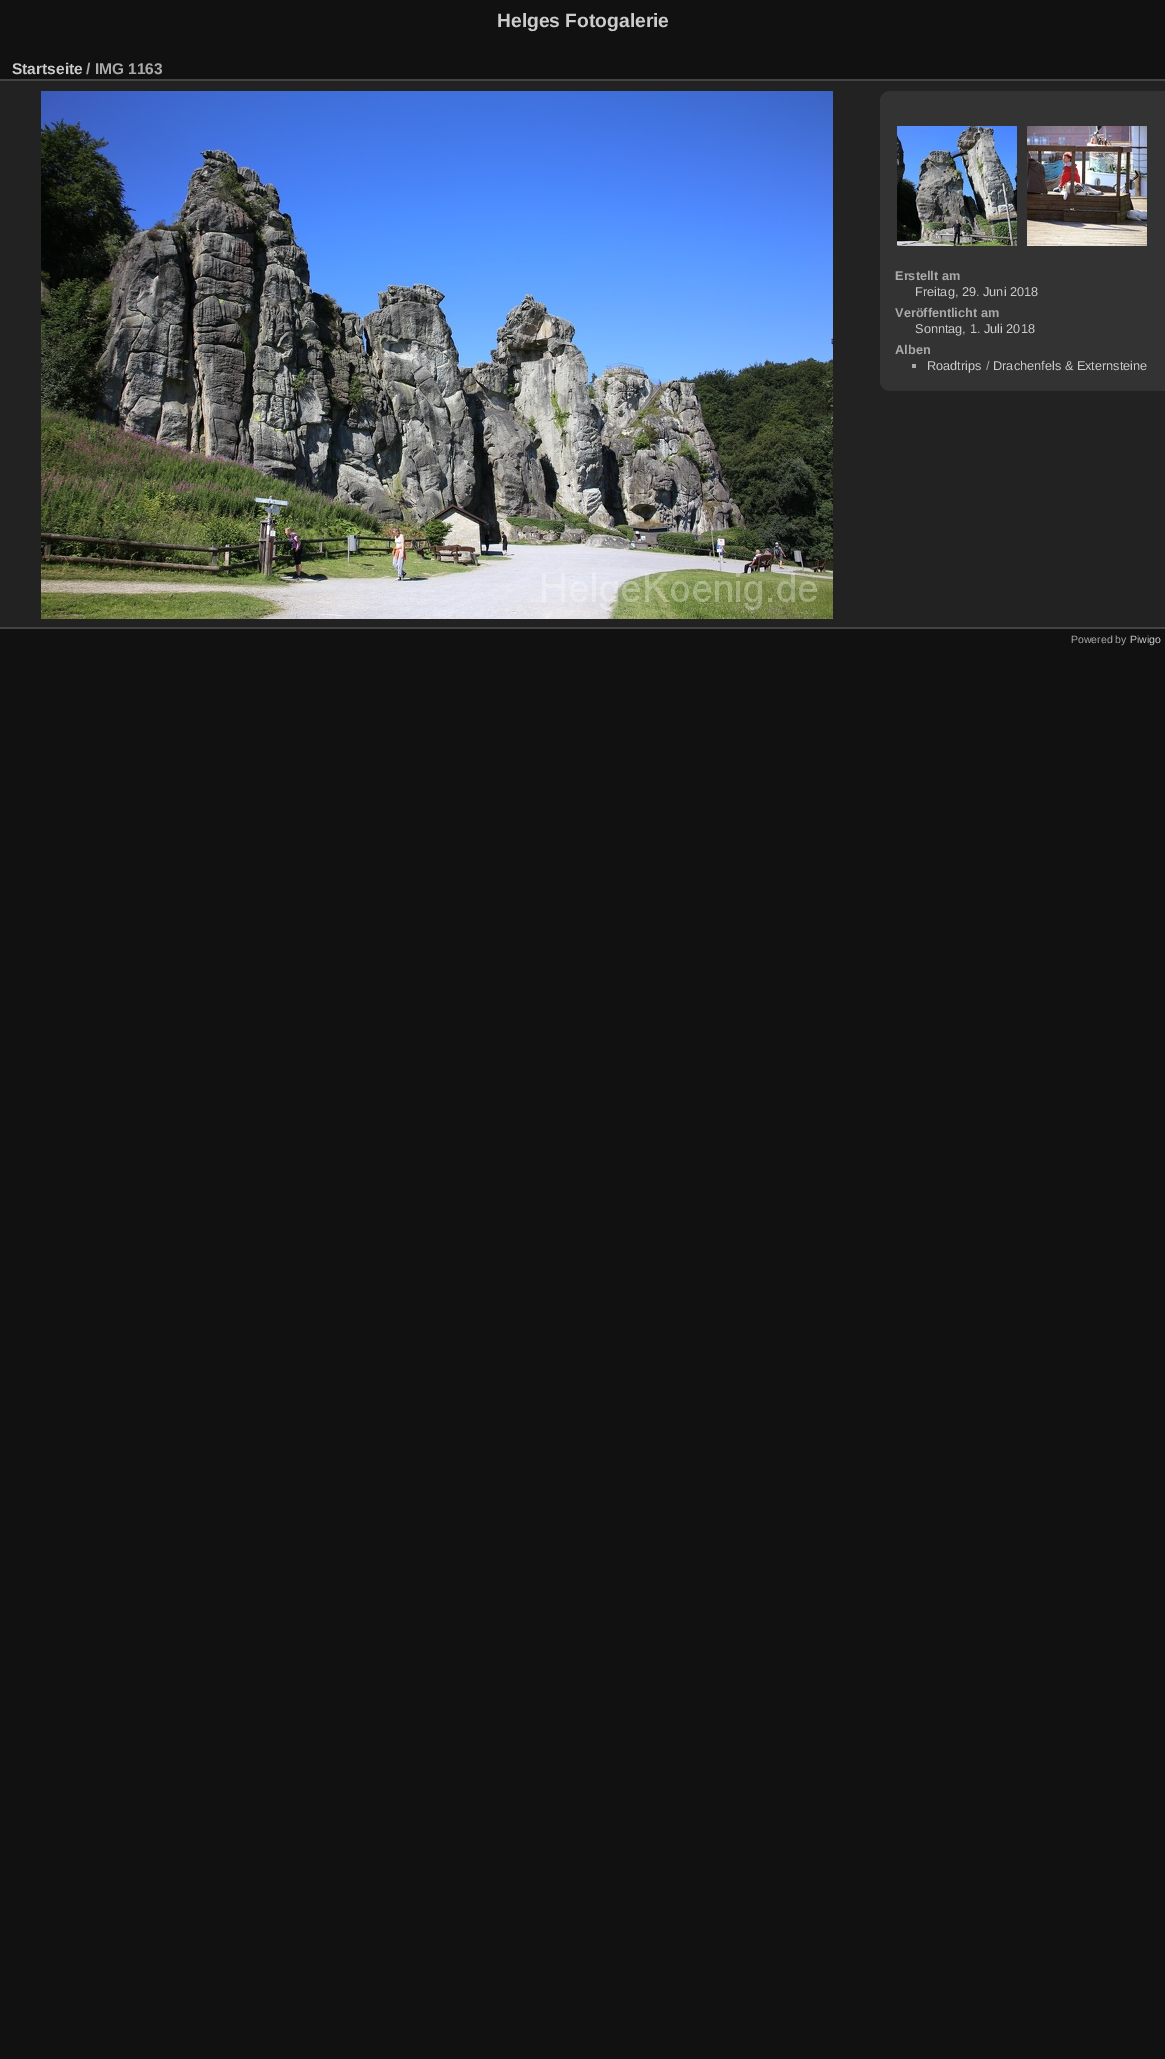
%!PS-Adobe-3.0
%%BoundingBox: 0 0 1165 2059
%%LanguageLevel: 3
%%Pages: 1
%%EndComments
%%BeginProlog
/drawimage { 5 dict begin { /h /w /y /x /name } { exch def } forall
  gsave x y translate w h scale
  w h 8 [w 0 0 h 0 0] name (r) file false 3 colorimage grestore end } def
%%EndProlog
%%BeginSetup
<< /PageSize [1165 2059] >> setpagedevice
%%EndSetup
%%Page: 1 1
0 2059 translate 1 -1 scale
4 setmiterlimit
0.067 setgray
0 0 1165 2059 rectfill
0.133 setgray
0 81 1165 546 rectfill
0.267 setgray
0 627 1165 2 rectfill
0 79 1165 2 rectfill
(images/1.raw) 41 91 792 528 drawimage
0.2 setgray
newpath 890 91 moveto 1165 91 lineto 1165 391 lineto 890 391 lineto 884.5 391 880 386.5 880 381 curveto 880 101 lineto 880 95.5 884.5 91 890 91 curveto closepath fill
(images/2.raw) 897 126 120 120 drawimage
(images/3.raw) 1027 126 120 120 drawimage
0.667 setgray
912 364 4 4 rectfill
/LiberationSans-Bold [19.25 0 0 -19.25 0 0] selectfont
0.8 setgray
497 27 moveto (Helges Fotogalerie) show
/LiberationSans-Bold [15.5 0 0 -15.5 0 0] selectfont
12 74 moveto (Startseite) show
0.667 setgray
86 74 moveto (/ IMG 1163) show
/LiberationSans-Bold [12.75 0 0 -12.75 0 0] selectfont
895 280 moveto (Erstellt am) show
/LiberationSans-Regular [12.75 0 0 -12.75 0 0] selectfont
0.8 setgray
915 296 moveto (Freitag, 29. Juni 2018) show
/LiberationSans-Bold [12.75 0 0 -12.75 0 0] selectfont
0.667 setgray
895 317 moveto (Veröffentlicht am) show
/LiberationSans-Regular [12.75 0 0 -12.75 0 0] selectfont
0.8 setgray
915 333 moveto (Sonntag, 1. Juli 2018) show
/LiberationSans-Bold [12.75 0 0 -12.75 0 0] selectfont
0.667 setgray
895 354 moveto (Alben) show
/LiberationSans-Regular [12.75 0 0 -12.75 0 0] selectfont
0.8 setgray
927 370 moveto (Roadtrips) show
0.667 setgray
986 370 moveto (/) show
0.8 setgray
993 370 moveto (Drachenfels & Externsteine) show
/LiberationSans-Regular [10.5 0 0 -10.5 0 0] selectfont
0.667 setgray
1071 643 moveto (Powered by) show
0.8 setgray
1130 643 moveto (Piwigo) show
showpage
%%EOF
